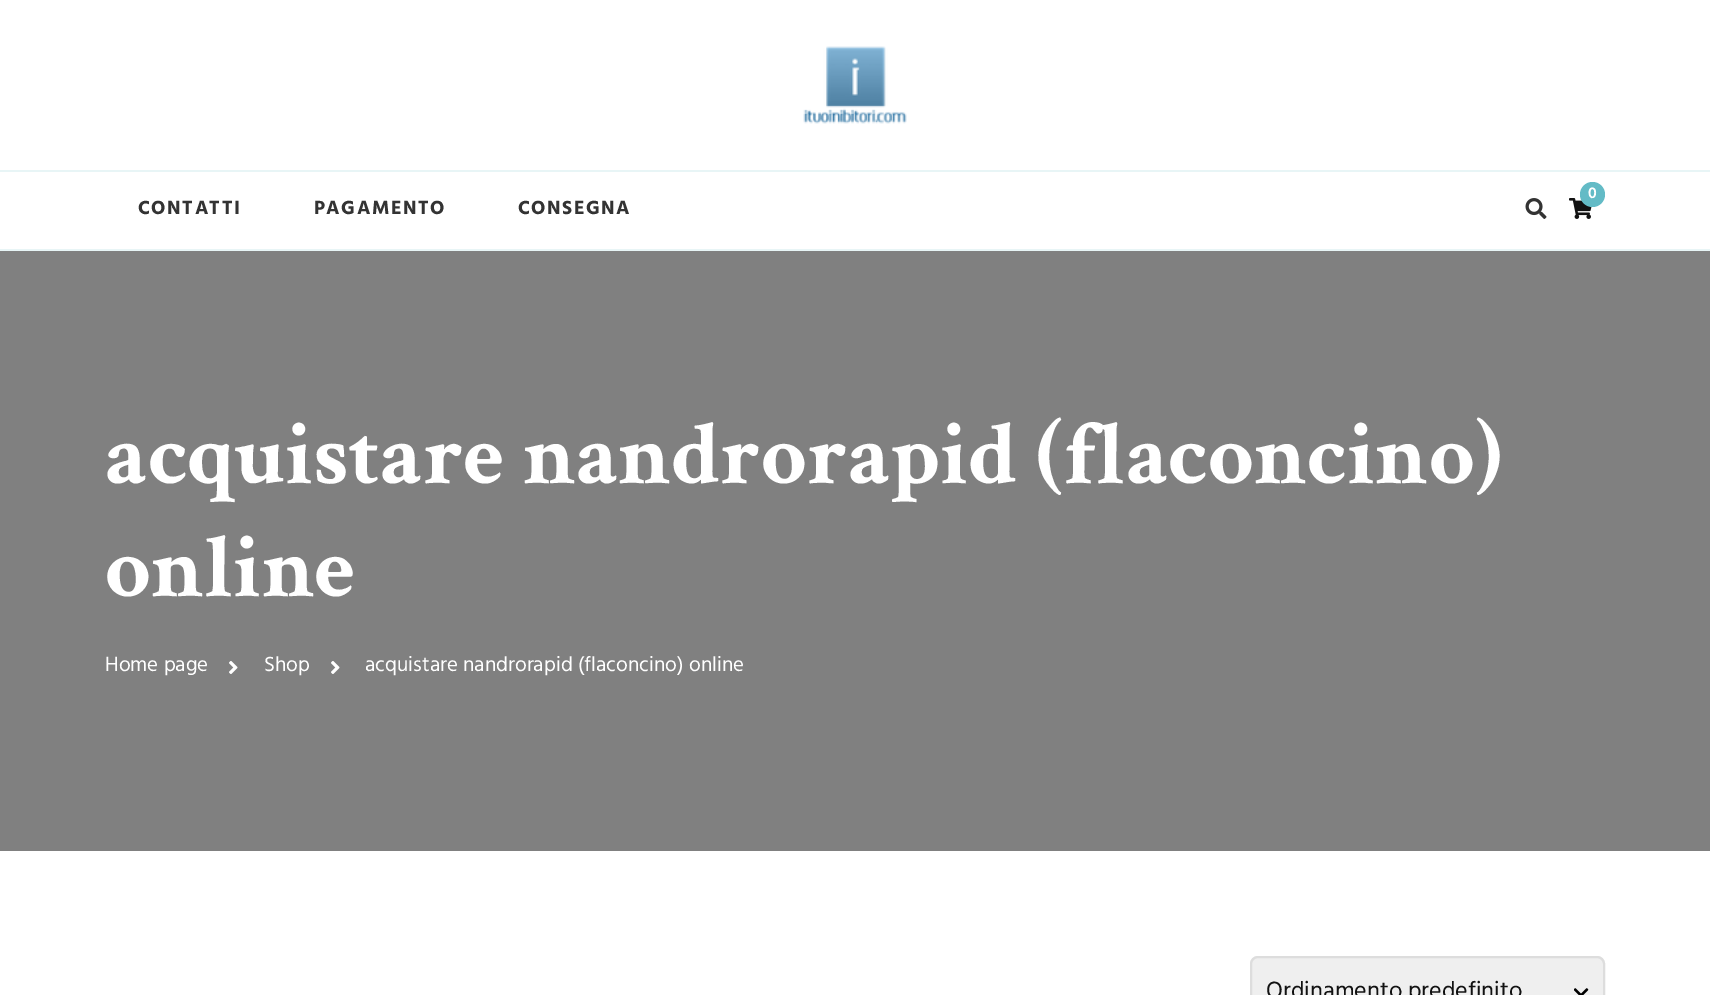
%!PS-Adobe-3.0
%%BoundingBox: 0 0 1710 995
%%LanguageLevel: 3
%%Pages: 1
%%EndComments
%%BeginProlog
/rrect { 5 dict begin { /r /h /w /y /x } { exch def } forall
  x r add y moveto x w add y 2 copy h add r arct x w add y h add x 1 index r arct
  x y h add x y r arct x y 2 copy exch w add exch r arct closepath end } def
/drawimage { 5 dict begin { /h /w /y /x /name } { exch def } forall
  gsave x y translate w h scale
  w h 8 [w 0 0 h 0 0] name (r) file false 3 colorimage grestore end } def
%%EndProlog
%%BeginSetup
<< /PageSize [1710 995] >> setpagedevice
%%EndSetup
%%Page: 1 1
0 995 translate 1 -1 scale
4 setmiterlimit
1 setgray
0 0 1710 995 rectfill
(images/1.raw) 803 46 104 78 drawimage
0.91 0.961 0.965 setrgbcolor
0 170 1710 2 rectfill
0 249 1710 2 rectfill
(images/2.raw) 1569 198 23 21 drawimage
0.388 0.733 0.776 setrgbcolor
newpath 1592.5 194.5 12.5 0 360 arc closepath fill
(images/3.raw) 1525 198 22 21 drawimage
0.502 setgray
0 251 1710 600 rectfill
(images/4.raw) 229 661 9 13 drawimage
(images/4.raw) 331 661 9 13 drawimage
0.937 setgray
1250 956 355 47 8 rrect fill
(images/5.raw) 1574 988 15 7 drawimage
0.867 setgray
2 setlinewidth
1251 957 353 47 7 rrect stroke
/Hind-SemiBold [16 0 0 -16 0 0] selectfont
1 setgray
1588 198 moveto (0) show
/Hind-Bold [19.5 0 0 -19.5 0 0] selectfont
0.2 setgray
138 214 moveto 1.5 0 (CONTATTI) ashow
314 214 moveto 1.5 0 (PAGAMENTO) ashow
518 214 moveto 1.5 0 (CONSEGNA) ashow
/CrimsonText-Bold [89.9 0 0 -89.9 0 0] selectfont
1 setgray
105 483 moveto (acquistare nandrorapid \(flaconcino\)) show
105 596 moveto (online) show
/Hind-Regular [21 0 0 -21 0 0] selectfont
105 671 moveto (Home page) show
264 671 moveto (Shop) show
365 671 moveto (acquistare nandrorapid \(flaconcino\) online) show
/Hind-Regular [24 0 0 -24 0 0] selectfont
0.071 setgray
1266 998 moveto (Ordinamento predefinito) show
showpage
%%EOF
